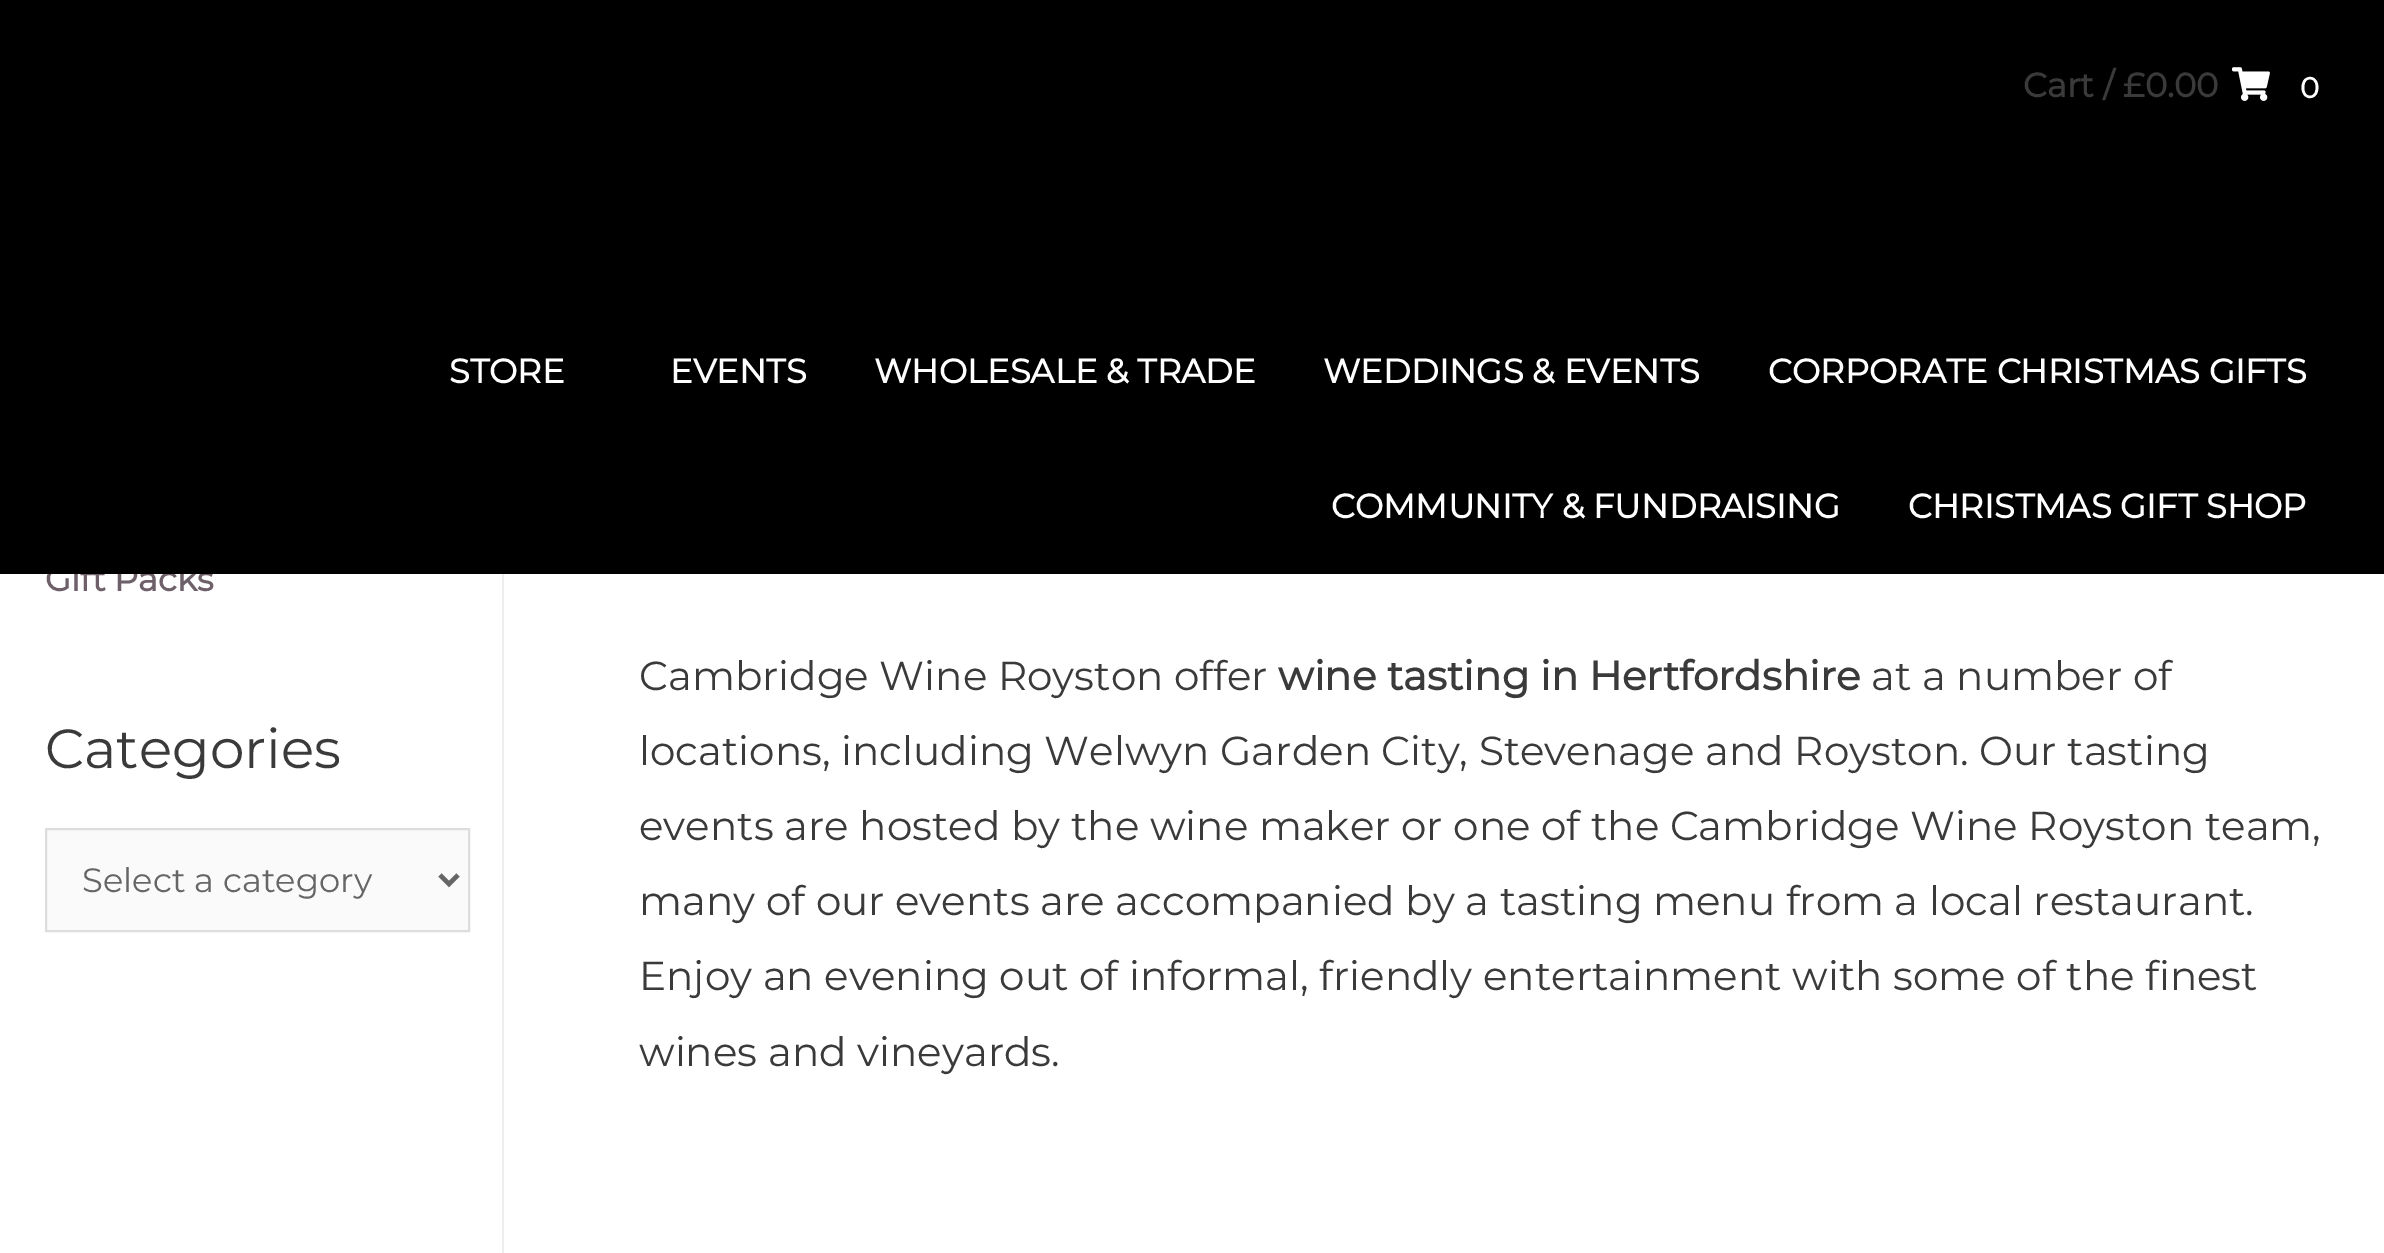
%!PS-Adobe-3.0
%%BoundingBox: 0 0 2384 1253
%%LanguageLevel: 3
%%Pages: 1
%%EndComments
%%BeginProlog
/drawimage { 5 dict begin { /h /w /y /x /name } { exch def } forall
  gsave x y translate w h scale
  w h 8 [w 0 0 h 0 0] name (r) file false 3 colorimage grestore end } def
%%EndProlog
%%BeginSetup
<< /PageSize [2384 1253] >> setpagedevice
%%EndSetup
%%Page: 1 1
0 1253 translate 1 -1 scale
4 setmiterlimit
1 setgray
0 0 2384 1253 rectfill
0.98 setgray
newpath 46 829 moveto 469 829 lineto 469 931 lineto 46 931 lineto closepath gsave fill grestore
0.867 setgray
2 setlinewidth
stroke
0.4 setgray
4.5 setlinewidth
newpath 440 875 moveto 449 884 lineto 458 875 lineto stroke
0.933 setgray
502 574 2 679 rectfill
/Montserrat-Bold [33.75 0 0 -33.75 0 0] selectfont
0.427 0.376 0.412 setrgbcolor
45 591 moveto (Gift Packs) show
0 setgray
0 0 2384 574 rectfill
/Montserrat-Bold [29 0 0 -29 0 0] selectfont
1 setgray
2300 98 moveto (0) show
(images/1.raw) 2232 67 38 34 drawimage
/Montserrat-Bold [33.75 0 0 -33.75 0 0] selectfont
0.227 setgray
2023 97 moveto (Cart / £0.00) show
1 setgray
1908 518 moveto (CHRISTMAS GIFT SHOP) show
1331 518 moveto (COMMUNITY & FUNDRAISING) show
1768 383 moveto (CORPORATE CHRISTMAS GIFTS) show
1323 383 moveto (WEDDINGS & EVENTS) show
874 383 moveto (WHOLESALE & TRADE) show
670 383 moveto (EVENTS) show
449 383 moveto (STORE) show
/Montserrat-Thin [55 0 0 -55 0 0] selectfont
0.227 setgray
45 768 moveto (Categories) show
/Montserrat-Thin [33.75 0 0 -33.75 0 0] selectfont
0.4 setgray
82 892 moveto (Select a category) show
/Montserrat-Thin [40.5 0 0 -40.5 0 0] selectfont
0.227 setgray
639 690 moveto (Cambridge Wine Royston offer) show
/Montserrat-Bold [40.5 0 0 -40.5 0 0] selectfont
1278 690 moveto (wine tasting in Hertfordshire) show
/Montserrat-Thin [40.5 0 0 -40.5 0 0] selectfont
1871 690 moveto (at a number of) show
639 765 moveto (locations, including Welwyn Garden City, Stevenage and Royston. Our tasting) show
639 840 moveto (events are hosted by the wine maker or one of the Cambridge Wine Royston team,) show
639 915 moveto (many of our events are accompanied by a tasting menu from a local restaurant.) show
639 990 moveto (Enjoy an evening out of informal, friendly entertainment with some of the finest) show
639 1066 moveto (wines and vineyards.) show
showpage
%%EOF
